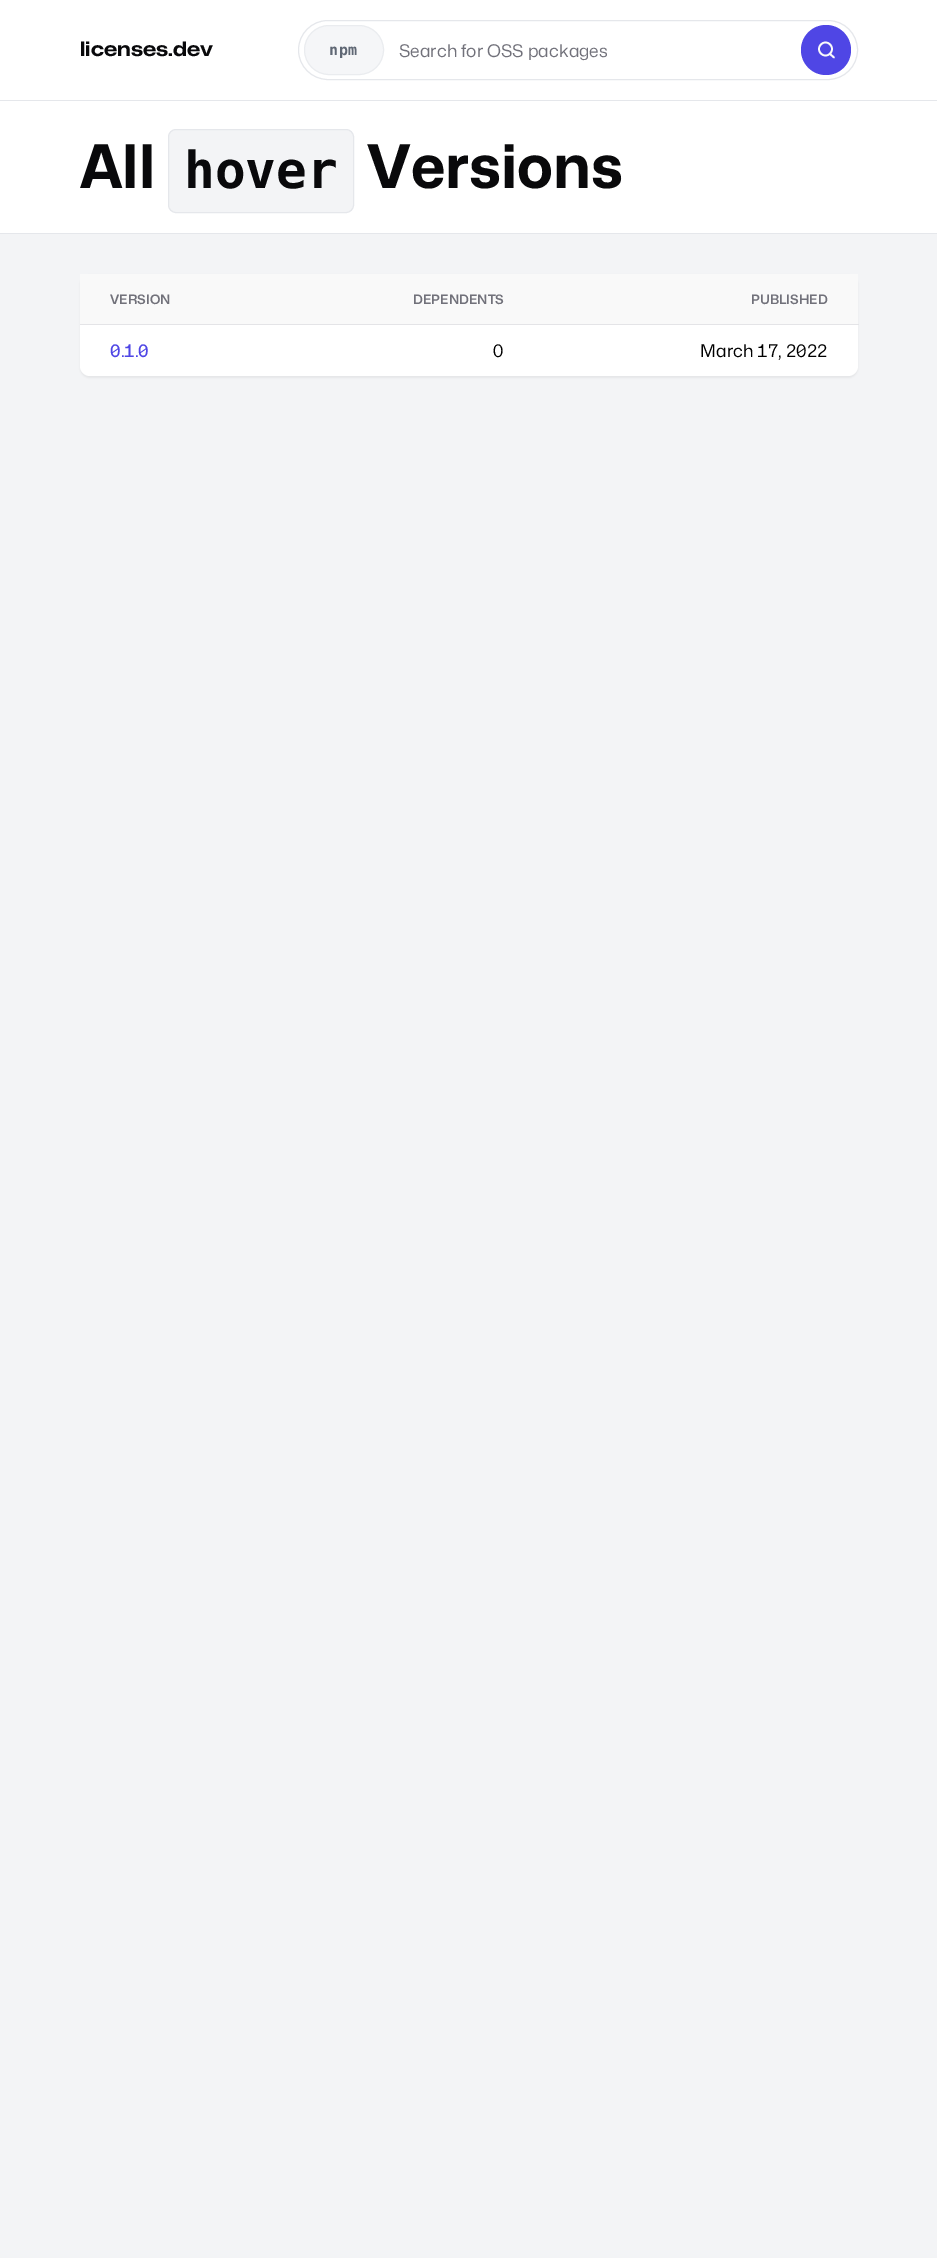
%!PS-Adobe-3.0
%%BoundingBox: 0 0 937 2258
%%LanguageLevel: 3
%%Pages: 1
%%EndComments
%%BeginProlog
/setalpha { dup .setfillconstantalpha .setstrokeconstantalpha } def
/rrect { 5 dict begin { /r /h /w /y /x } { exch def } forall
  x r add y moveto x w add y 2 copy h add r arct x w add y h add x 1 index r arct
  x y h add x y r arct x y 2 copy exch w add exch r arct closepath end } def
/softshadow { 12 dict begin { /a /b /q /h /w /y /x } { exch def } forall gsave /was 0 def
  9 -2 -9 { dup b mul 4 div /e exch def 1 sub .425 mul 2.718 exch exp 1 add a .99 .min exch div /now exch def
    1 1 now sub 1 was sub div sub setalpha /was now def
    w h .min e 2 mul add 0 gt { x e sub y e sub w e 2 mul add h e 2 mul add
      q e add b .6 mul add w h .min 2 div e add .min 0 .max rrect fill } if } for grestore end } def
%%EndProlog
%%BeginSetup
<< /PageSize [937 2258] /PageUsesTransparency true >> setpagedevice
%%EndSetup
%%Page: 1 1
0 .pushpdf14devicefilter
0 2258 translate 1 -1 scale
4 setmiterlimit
0.953 0.957 0.965 setrgbcolor
0 0 937 2258 rectfill
1 setgray
0 0 937 100 rectfill
0.898 0.906 0.922 setrgbcolor
0 100 937 1 rectfill
298.5 20.5 559 59 29.5 rrect stroke
0.961 0.965 0.973 setrgbcolor
304.5 25.5 79 49 24.5 rrect gsave fill grestore
0.918 0.925 0.937 setrgbcolor
stroke
0.31 0.275 0.898 setrgbcolor
newpath 826 50 25 0 360 arc closepath fill
0.98 setgray
1.7 setlinewidth
newpath 825.5 49 6.5 0 360 arc closepath stroke
1 setlinecap
1 setlinejoin
newpath 834 57.5 moveto 830 54 lineto stroke
1 setgray
0 101 937 132 rectfill
0.898 0.906 0.922 setrgbcolor
0 233 937 1 rectfill
0.953 0.957 0.965 setrgbcolor
168.5 129.5 185 83 7.5 rrect gsave fill grestore
0.898 0.906 0.922 setrgbcolor
1 setlinewidth
0 setlinecap
0 setlinejoin
stroke
0 setgray
80 275 778 103 10 1 0.05 softshadow
1 setgray
80 274 778 102 10 rrect fill
0.976 setgray
80 274 778 50 rectfill
0.894 0.894 0.906 setrgbcolor
80 324 779 1 rectfill
/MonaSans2-Bold [20 0 0 -20 0 0] selectfont
0.035 0.035 0.043 setrgbcolor
80 56 moveto (licenses.dev) show
/DejaVuSansMono-Bold [15 0 0 -15 0 0] selectfont
0.373 0.404 0.455 setrgbcolor
329 55 moveto 0.5 0 (npm) ashow
/MonaSans-Regular [17.5 0 0 -17.5 0 0] selectfont
0.443 0.443 0.478 setrgbcolor
399 57 moveto (Search for OSS packages) show
/MonaSans-Bold [60 0 0 -60 0 0] selectfont
0.035 0.035 0.043 setrgbcolor
80 188 moveto (All) show
/DejaVuSansMono-Bold [51 0 0 -51 0 0] selectfont
184 188 moveto (hover) show
/MonaSans-Bold [60 0 0 -60 0 0] selectfont
367 188 moveto (Versions) show
/MonaSans-SemiBold [13 0 0 -13 0 0] selectfont
0.443 0.443 0.478 setrgbcolor
110 304 moveto (VERSION) show
413 304 moveto (DEPENDENTS) show
751 304 moveto (PUBLISHED) show
/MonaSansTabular-Medium [17.5 0 0 -17.5 0 0] selectfont
0.31 0.275 0.898 setrgbcolor
110 357 moveto (0.1.0) show
/MonaSans-Regular [17.5 0 0 -17.5 0 0] selectfont
0 setgray
493 357 moveto (0) show
/MonaSansTabular-Regular [17.5 0 0 -17.5 0 0] selectfont
700 357 moveto (March 17, 2022) show
.poppdf14devicefilter showpage
%%EOF
